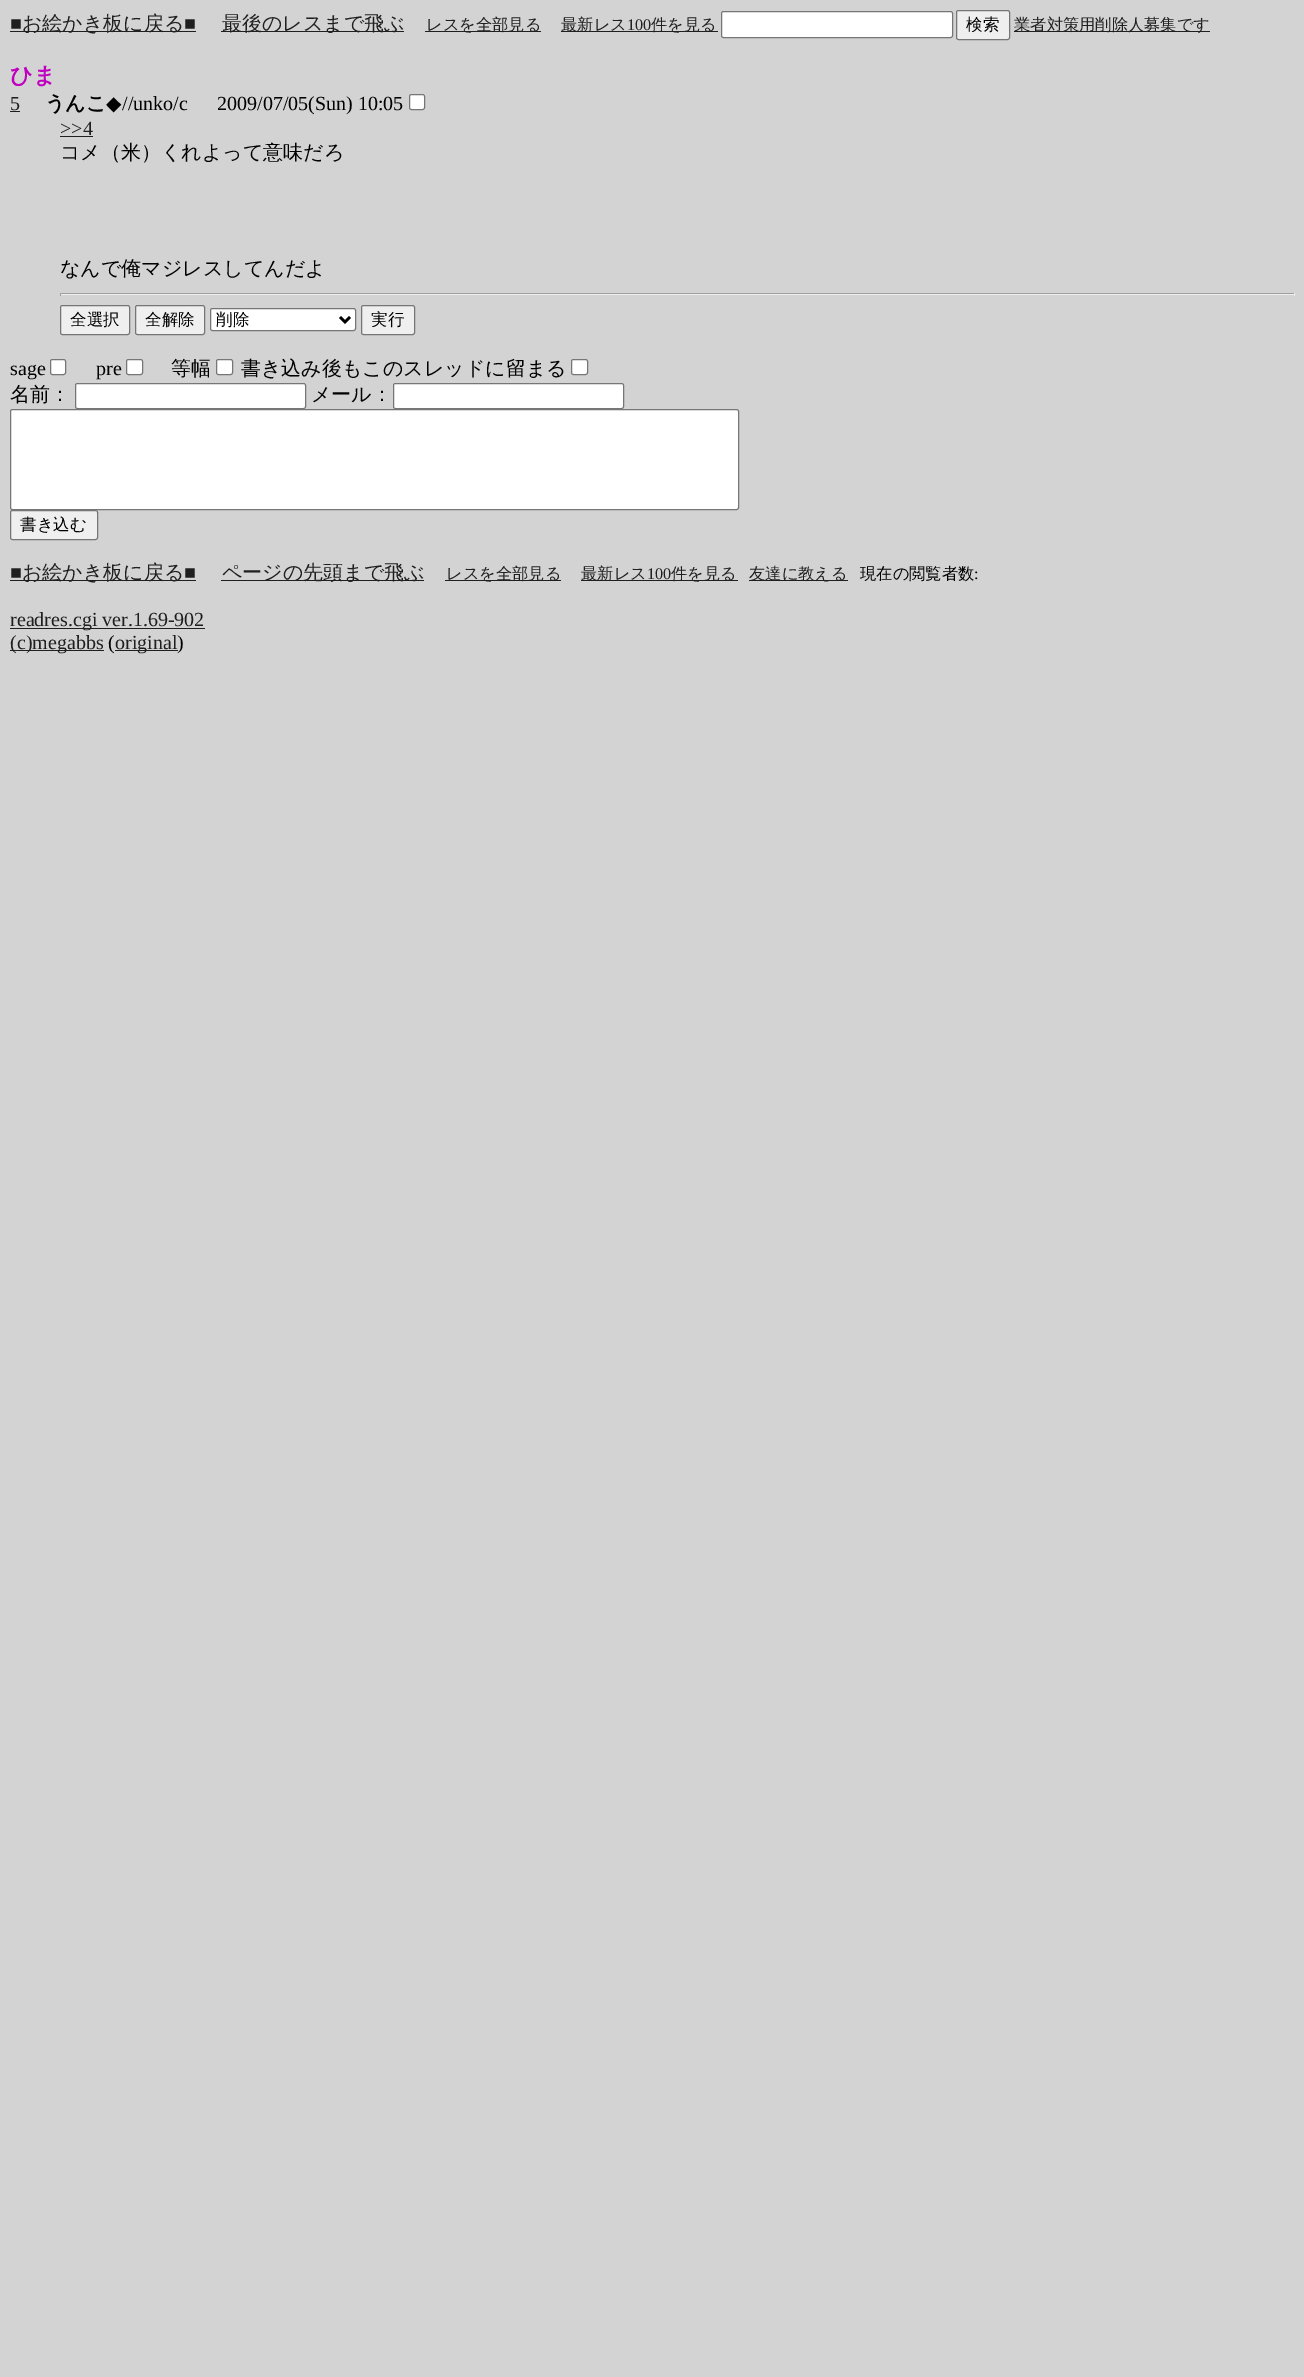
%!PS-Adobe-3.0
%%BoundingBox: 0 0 1304 2377
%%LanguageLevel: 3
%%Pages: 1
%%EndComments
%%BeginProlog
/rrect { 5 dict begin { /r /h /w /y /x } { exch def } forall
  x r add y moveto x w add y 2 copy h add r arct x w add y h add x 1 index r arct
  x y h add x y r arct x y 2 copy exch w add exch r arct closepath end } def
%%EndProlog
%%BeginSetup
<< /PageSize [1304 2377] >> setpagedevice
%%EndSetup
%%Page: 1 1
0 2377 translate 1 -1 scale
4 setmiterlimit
0.827 setgray
0 0 1304 2377 rectfill
0.122 setgray
10 31 186 1 rectfill
221 31 183 1 rectfill
425 31 116 1 rectfill
561 31 157 1 rectfill
1 setgray
721.5 11.5 231 26 2 rrect gsave fill grestore
0.463 setgray
stroke
0.937 setgray
956.5 10.5 53 29 2 rrect gsave fill grestore
0.463 setgray
stroke
0.122 setgray
1014 31 196 1 rectfill
10 111 10 1 rectfill
1 setgray
409.5 94.5 15 15 2 rrect gsave fill grestore
0.463 setgray
stroke
0.122 setgray
60 136 33 1 rectfill
0.624 setgray
60 293 1235 1 rectfill
0.933 setgray
1294 293 1 3 rectfill
60 294 1235 1 rectfill
0.624 setgray
60 293 1 3 rectfill
0.937 setgray
60.5 305.5 69 29 2 rrect gsave fill grestore
0.463 setgray
stroke
0.937 setgray
135.5 305.5 69 29 2 rrect gsave fill grestore
0.463 setgray
stroke
1 setgray
210.5 308.5 145 22 2 rrect gsave fill grestore
0.463 setgray
stroke
0 setgray
2.5 setlinewidth
newpath 340 317 moveto 345 322 lineto 350 317 lineto stroke
0.937 setgray
361.5 305.5 53 29 2 rrect gsave fill grestore
0.463 setgray
1 setlinewidth
stroke
1 setgray
50.5 359.5 15 15 2 rrect gsave fill grestore
0.463 setgray
stroke
1 setgray
126.5 359.5 16 15 2 rrect gsave fill grestore
0.463 setgray
stroke
1 setgray
216.5 359.5 16 15 2 rrect gsave fill grestore
0.463 setgray
stroke
1 setgray
571.5 359.5 16 15 2 rrect gsave fill grestore
0.463 setgray
stroke
1 setgray
75.5 383.5 230 25 2 rrect gsave fill grestore
0.463 setgray
stroke
1 setgray
393.5 383.5 230 25 2 rrect gsave fill grestore
0.463 setgray
stroke
1 setgray
10.5 409.5 728 100 2 rrect gsave fill grestore
0.463 setgray
stroke
0.937 setgray
10.5 510.5 87 29 2 rrect gsave fill grestore
0.463 setgray
stroke
0.122 setgray
10 580 186 1 rectfill
221 580 203 1 rectfill
445 580 116 1 rectfill
581 580 157 1 rectfill
749 580 99 1 rectfill
10 628 195 1 rectfill
10 650 94 1 rectfill
115 650 63 1 rectfill
/LiberationSerif-Regular [20 0 0 -20 0 0] selectfont
10 30 moveto (■) show
/WenQuanYiZenHei-Medium [20 0 0 -20 0 0] selectfont
22 30 moveto (お絵かき板に戻る) show
/LiberationSerif-Regular [20 0 0 -20 0 0] selectfont
184 30 moveto (■) show
/WenQuanYiZenHei-Medium [20 0 0 -20 0 0] selectfont
222 30 moveto (最後のレスまで飛ぶ) show
/WenQuanYiZenHei-Medium [16.25 0 0 -16.25 0 0] selectfont
426 30 moveto (レスを全部見る) show
561 30 moveto (最新レス) show
/LiberationSerif-Regular [16.25 0 0 -16.25 0 0] selectfont
627 30 moveto (100) show
/WenQuanYiZenHei-Medium [16.25 0 0 -16.25 0 0] selectfont
651 30 moveto (件を見る) show
/WenQuanYiZenHei-Medium [16.5 0 0 -16.5 0 0] selectfont
0 setgray
966 30 moveto (検索) show
/WenQuanYiZenHei-Medium [16.25 0 0 -16.25 0 0] selectfont
0.122 setgray
1014 30 moveto (業者対策用削除人募集です) show
/WenQuanYiZenHei-Bold [22.5 0 0 -22.5 0 0] selectfont
0.749 0 0.749 setrgbcolor
10 83 moveto (ひま) show
/LiberationSerif-Regular [20 0 0 -20 0 0] selectfont
0.122 setgray
10 110 moveto (5) show
/WenQuanYiZenHei-Bold [20 0 0 -20 0 0] selectfont
0 setgray
45 110 moveto (うんこ) show
/DejaVuSans-Regular [20 0 0 -20 0 0] selectfont
106 110 moveto (◆) show
/LiberationSerif-Regular [20 0 0 -20 0 0] selectfont
122 110 moveto (//unko/c) show
217 110 moveto (2009/07/05\(Sun\) 10:05) show
0.122 setgray
60 135 moveto (>>4) show
/WenQuanYiZenHei-Medium [20 0 0 -20 0 0] selectfont
0 setgray
60 159 moveto (コメ（米）くれよって意味だろ) show
60 275 moveto (なんで俺マジレスしてんだよ) show
/WenQuanYiZenHei-Medium [16.5 0 0 -16.5 0 0] selectfont
70 325 moveto (全選択) show
145 325 moveto (全解除) show
216 325 moveto (削除) show
371 325 moveto (実行) show
/LiberationSerif-Regular [20 0 0 -20 0 0] selectfont
10 375 moveto (sage) show
96 375 moveto (pre) show
/WenQuanYiZenHei-Medium [20 0 0 -20 0 0] selectfont
171 375 moveto (等幅) show
241 375 moveto (書き込み後もこのスレッドに留まる) show
10 401 moveto (名前：) show
311 401 moveto (メール：) show
/WenQuanYiZenHei-Medium [16.5 0 0 -16.5 0 0] selectfont
20 530 moveto (書き込む) show
/LiberationSerif-Regular [20 0 0 -20 0 0] selectfont
0.122 setgray
10 579 moveto (■) show
/WenQuanYiZenHei-Medium [20 0 0 -20 0 0] selectfont
22 579 moveto (お絵かき板に戻る) show
/LiberationSerif-Regular [20 0 0 -20 0 0] selectfont
184 579 moveto (■) show
/WenQuanYiZenHei-Medium [20 0 0 -20 0 0] selectfont
222 579 moveto (ページの先頭まで飛ぶ) show
/WenQuanYiZenHei-Medium [16.25 0 0 -16.25 0 0] selectfont
446 579 moveto (レスを全部見る) show
581 579 moveto (最新レス) show
/LiberationSerif-Regular [16.25 0 0 -16.25 0 0] selectfont
647 579 moveto (100) show
/WenQuanYiZenHei-Medium [16.25 0 0 -16.25 0 0] selectfont
671 579 moveto (件を見る) show
749 579 moveto (友達に教える) show
0 setgray
860 579 moveto (現在の閲覧者数) show
/LiberationSerif-Regular [16.25 0 0 -16.25 0 0] selectfont
974 579 moveto (:) show
/LiberationSerif-Regular [20 0 0 -20 0 0] selectfont
0.122 setgray
10 626 moveto (readres.cgi ver.1.69-902) show
10 649 moveto (\(c\)megabbs) show
0 setgray
108 649 moveto (\() show
0.122 setgray
115 649 moveto (original) show
0 setgray
177 649 moveto (\)) show
showpage
%%EOF
